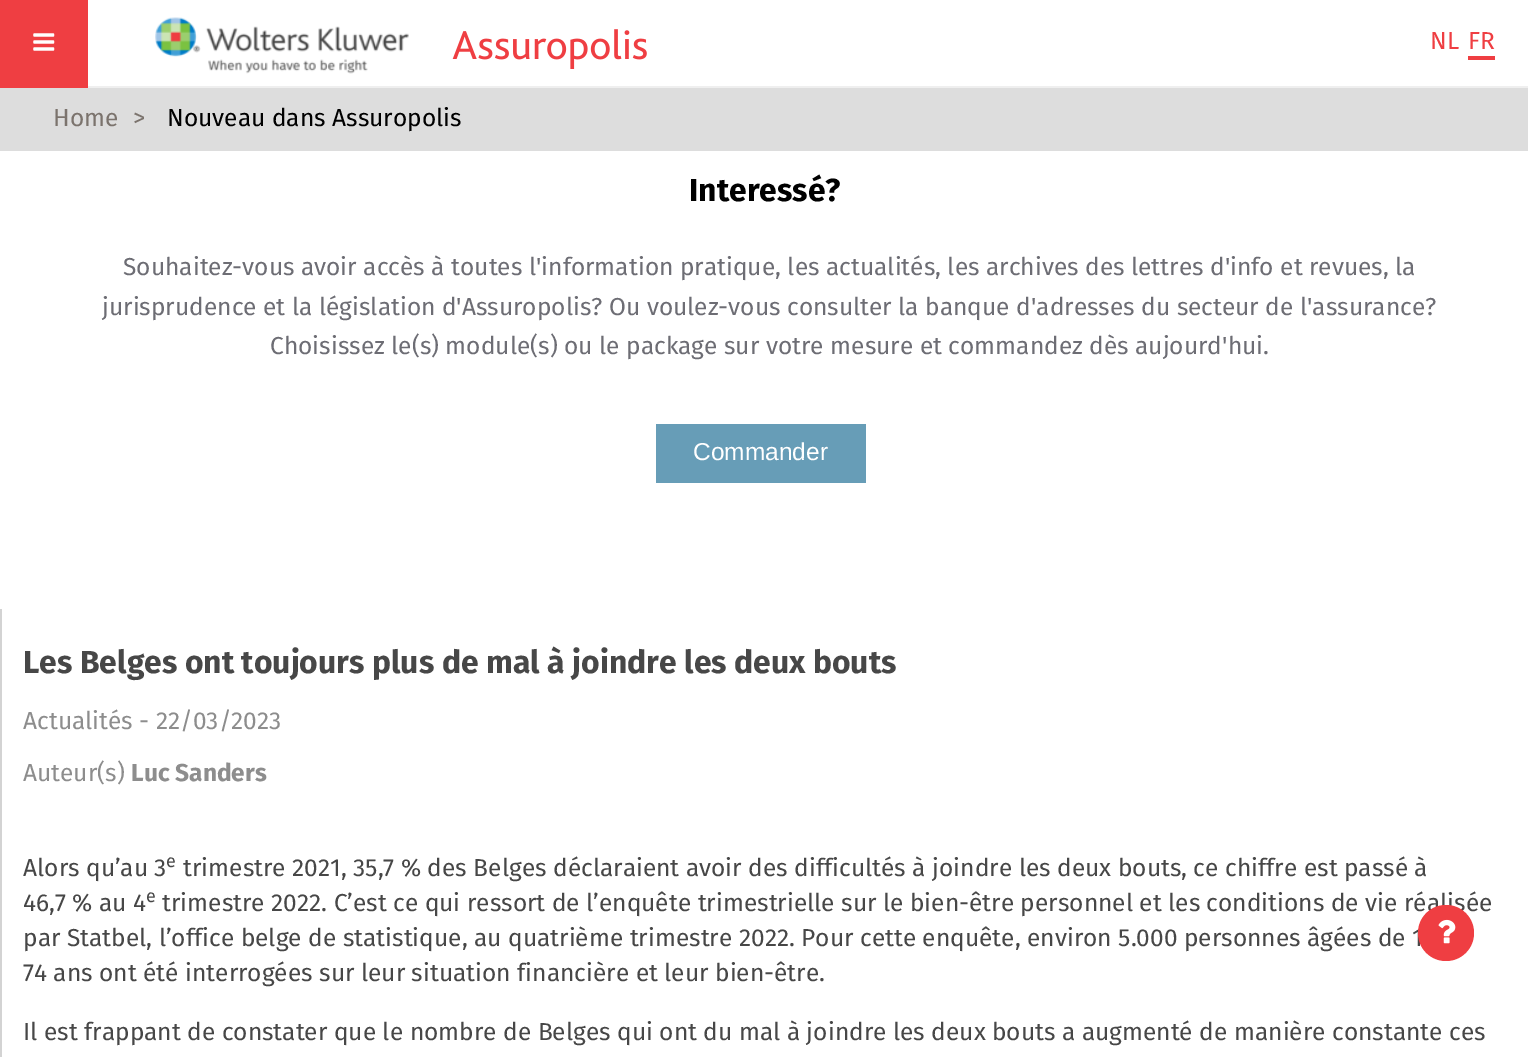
%!PS-Adobe-3.0
%%BoundingBox: 0 0 1528 1057
%%LanguageLevel: 3
%%Pages: 1
%%EndComments
%%BeginProlog
/drawimage { 5 dict begin { /h /w /y /x /name } { exch def } forall
  gsave x y translate w h scale
  w h 8 [w 0 0 h 0 0] name (r) file false 3 colorimage grestore end } def
%%EndProlog
%%BeginSetup
<< /PageSize [1528 1057] >> setpagedevice
%%EndSetup
%%Page: 1 1
0 1057 translate 1 -1 scale
4 setmiterlimit
1 setgray
0 0 1528 1057 rectfill
0.937 setgray
88 86 1440 2 rectfill
0.937 0.243 0.259 setrgbcolor
0 0 88 88 rectfill
(images/1.raw) 33 33 22 18 drawimage
(images/2.raw) 155 17 254 57 drawimage
(images/3.raw) 452 29 195 40 drawimage
1468 56 27 4 rectfill
0.867 setgray
0 88 1528 63 rectfill
0.404 0.616 0.718 setrgbcolor
656 424 210 59 rectfill
0.827 setgray
0 609 2 448 rectfill
/FiraSans-Regular [24.5 0 0 -24.5 0 0] selectfont
0.937 0.243 0.259 setrgbcolor
1430 49 moveto (NL) show
1468 49 moveto (FR) show
0.482 0.451 0.427 setrgbcolor
53 126 moveto (Home) show
133 126 moveto (>) show
0 setgray
167 126 moveto (Nouveau dans Assuropolis) show
/FiraSans-Bold [31.85 0 0 -31.85 0 0] selectfont
689 201 moveto (Interessé?) show
/FiraSans-Regular [24.5 0 0 -24.5 0 0] selectfont
0.427 0.427 0.455 setrgbcolor
123 275 moveto (Souhaitez-vous avoir accès à toutes l'information pratique, les actualités, les archives des lettres d'info et revues, la) show
102 315 moveto (jurisprudence et la législation d'Assuropolis? Ou voulez-vous consulter la banque d'adresses du secteur de l'assurance?) show
270 354 moveto (Choisissez le\(s\) module\(s\) ou le package sur votre mesure et commandez dès aujourd'hui.) show
/LiberationSans-Regular [24.5 0 0 -24.5 0 0] selectfont
1 setgray
693 460 moveto (Commander) show
/FiraSans-Bold [31.85 0 0 -31.85 0 0] selectfont
0.278 setgray
23 673 moveto (Les Belges ont toujours plus de mal à joindre les deux bouts) show
/FiraSans-Regular [24.5 0 0 -24.5 0 0] selectfont
0.553 setgray
23 729 moveto (Actualités - 22/03/2023) show
23 781 moveto (Auteur\(s\)) show
/FiraSans-Bold [24.5 0 0 -24.5 0 0] selectfont
131 781 moveto (Luc Sanders) show
/FiraSans-Regular [24.5 0 0 -24.5 0 0] selectfont
0.278 setgray
23 876 moveto (Alors qu’au 3) show
/FiraSans-Regular [18 0 0 -18 0 0] selectfont
166 867 moveto (e) show
/FiraSans-Regular [24.5 0 0 -24.5 0 0] selectfont
183 876 moveto (trimestre 2021, 35,7 % des Belges déclaraient avoir des difficultés à joindre les deux bouts, ce chiffre est passé à) show
23 911 moveto (46,7 % au 4) show
/FiraSans-Regular [18 0 0 -18 0 0] selectfont
146 902 moveto (e) show
/FiraSans-Regular [24.5 0 0 -24.5 0 0] selectfont
162 911 moveto (trimestre 2022. C’est ce qui ressort de l’enquête trimestrielle sur le bien-être personnel et les conditions de vie réalisée) show
23 946 moveto (par Statbel, l’office belge de statistique, au quatrième trimestre 2022. Pour cette enquête, environ 5.000 personnes âgées de 1) show
23 981 moveto (74 ans ont été interrogées sur leur situation financière et leur bien-être.) show
23 1040 moveto (Il est frappant de constater que le nombre de Belges qui ont du mal à joindre les deux bouts a augmenté de manière constante ces) show
0.937 0.243 0.259 setrgbcolor
newpath 1446 933 28 0 360 arc closepath fill
(images/4.raw) 1438 919 18 25 drawimage
showpage
%%EOF
